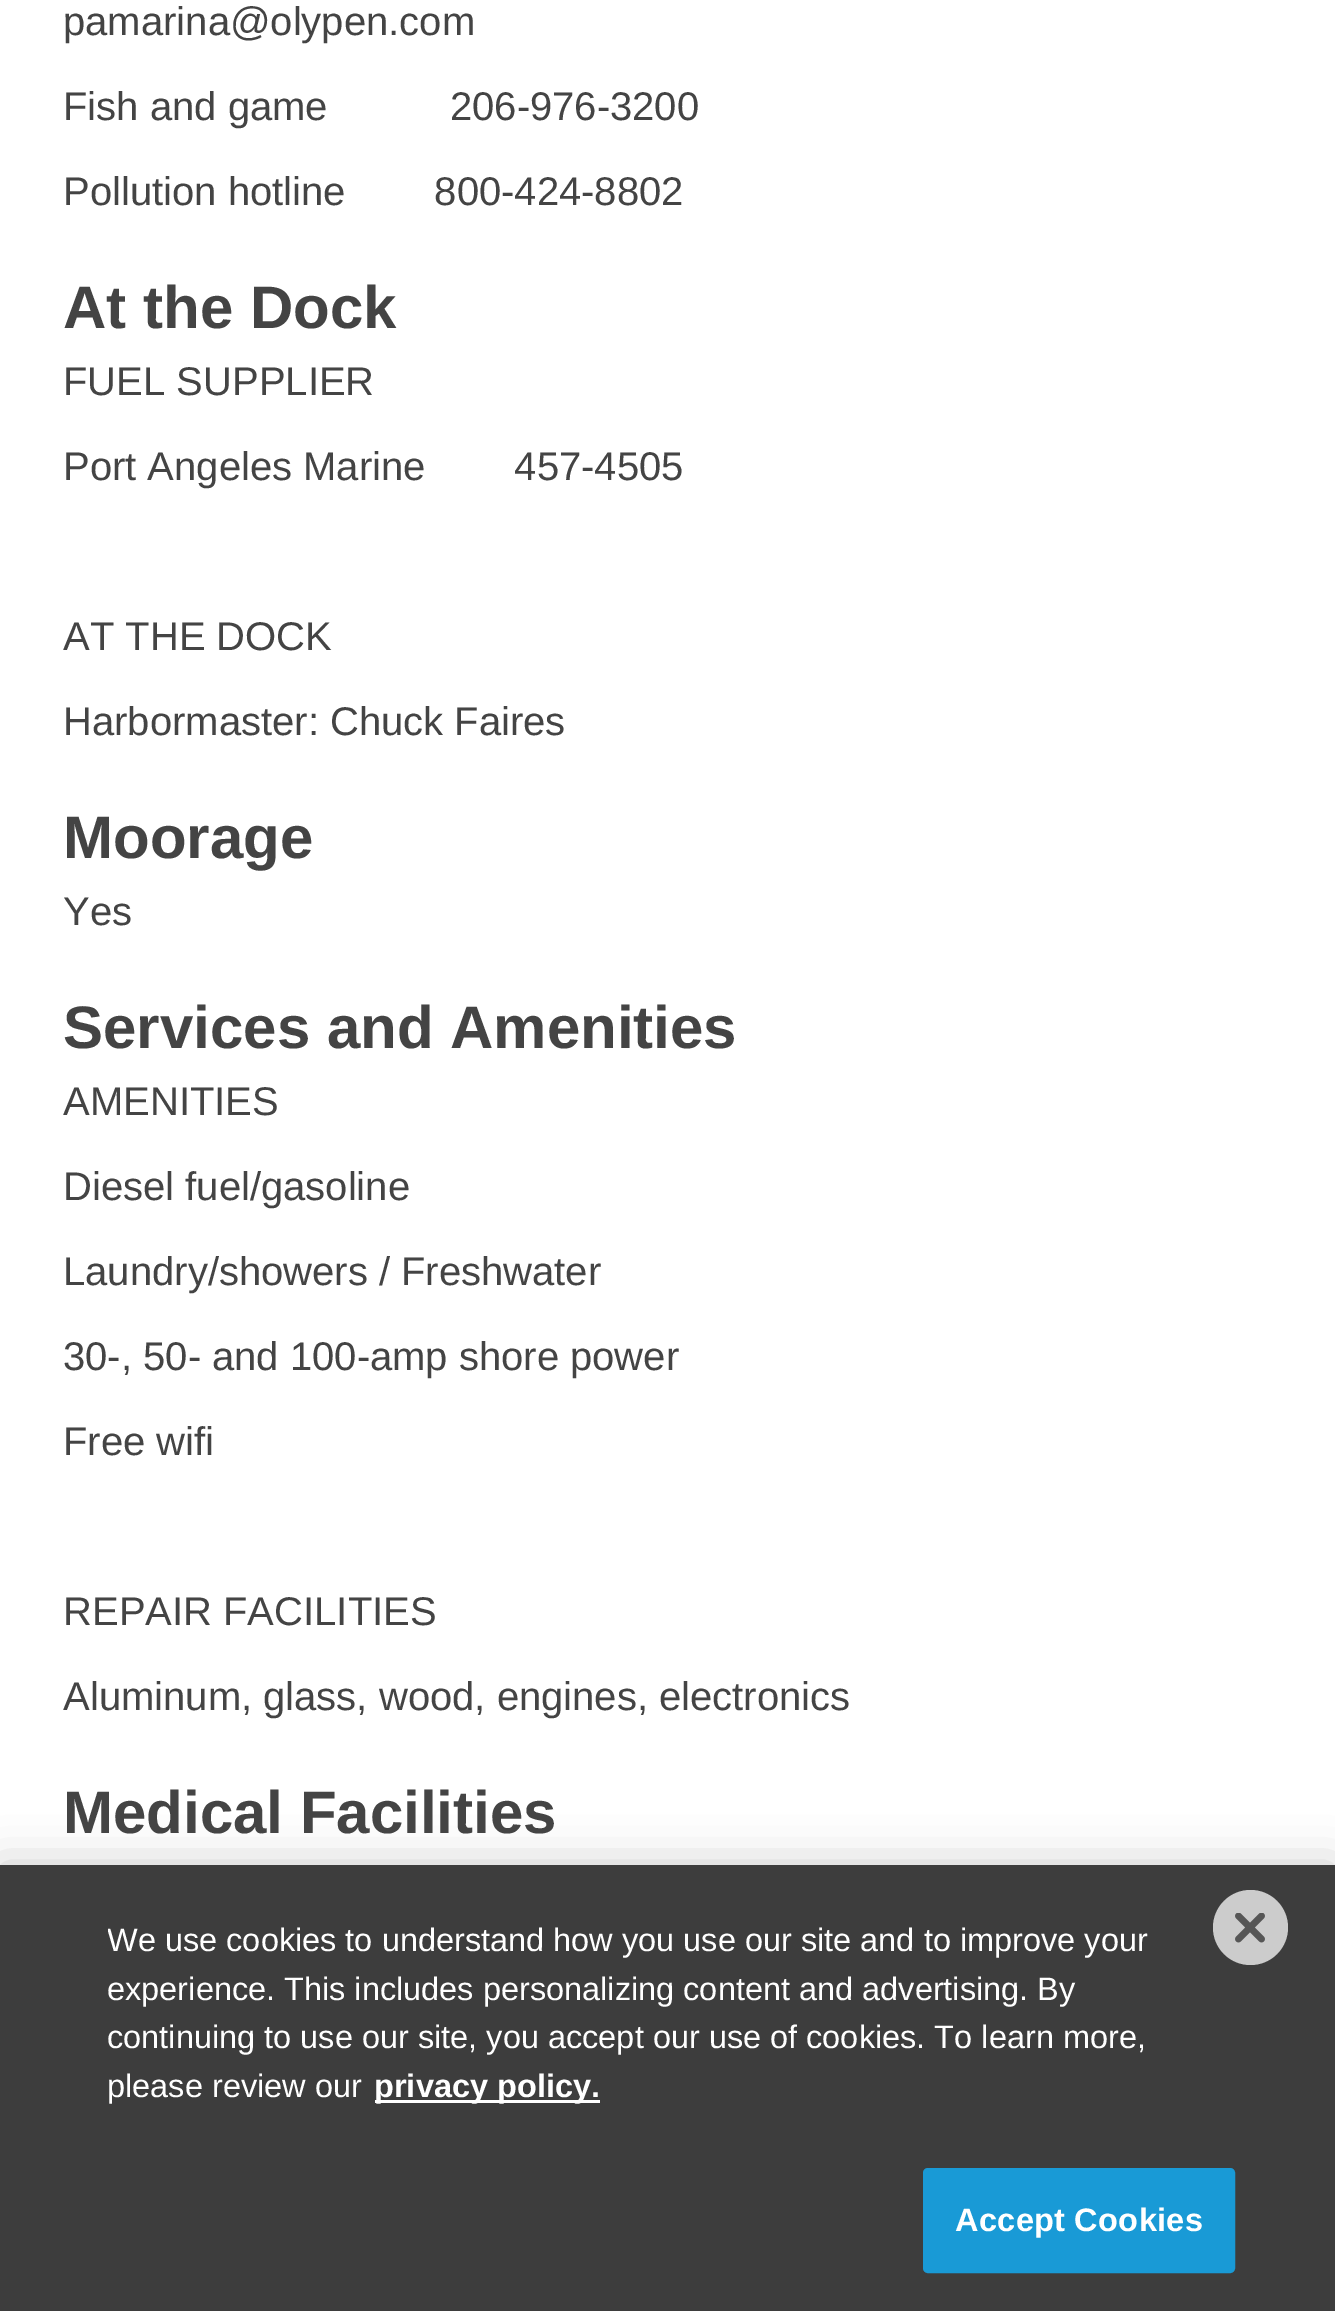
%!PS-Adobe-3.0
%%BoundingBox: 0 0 1335 2311
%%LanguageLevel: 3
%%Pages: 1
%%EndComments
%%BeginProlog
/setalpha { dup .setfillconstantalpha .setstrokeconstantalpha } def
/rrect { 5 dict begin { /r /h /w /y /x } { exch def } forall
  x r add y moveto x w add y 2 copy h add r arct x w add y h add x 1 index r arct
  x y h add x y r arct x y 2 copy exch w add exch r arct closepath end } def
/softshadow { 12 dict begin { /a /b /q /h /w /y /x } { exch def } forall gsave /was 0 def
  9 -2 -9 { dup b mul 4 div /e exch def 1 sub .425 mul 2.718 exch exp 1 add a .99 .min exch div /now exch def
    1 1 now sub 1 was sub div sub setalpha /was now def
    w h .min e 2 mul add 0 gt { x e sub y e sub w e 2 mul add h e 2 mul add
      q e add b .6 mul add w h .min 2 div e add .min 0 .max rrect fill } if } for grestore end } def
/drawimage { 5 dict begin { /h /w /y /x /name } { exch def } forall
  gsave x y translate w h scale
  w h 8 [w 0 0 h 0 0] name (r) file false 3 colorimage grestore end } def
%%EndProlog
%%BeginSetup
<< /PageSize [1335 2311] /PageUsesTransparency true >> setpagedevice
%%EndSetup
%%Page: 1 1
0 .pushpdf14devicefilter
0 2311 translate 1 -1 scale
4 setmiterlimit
1 setgray
0 0 1335 2311 rectfill
0 setgray
0 1865 1335 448 0 22.5 0.2 softshadow
0.239 setgray
0 1865 1335 446 rectfill
1 setgray
375 2100 225 3 rectfill
0.098 0.604 0.839 setrgbcolor
924.5 2169.5 309 102 3.5 rrect gsave fill grestore
3 setlinewidth
stroke
0.8 setgray
newpath 1250.5 1927.5 37.5 0 360 arc closepath fill
(images/1.raw) 1235 1913 30 30 drawimage
/LiberationSans-Regular [40 0 0 -40 0 0] selectfont
0.267 setgray
63 35 moveto (pamarina@olypen.com) show
63 120 moveto (Fish and game           206-976-3200) show
63 205 moveto (Pollution hotline        800-424-8802) show
/LiberationSans-Bold [60 0 0 -60 0 0] selectfont
63 328 moveto (At the Dock) show
/LiberationSans-Regular [40 0 0 -40 0 0] selectfont
63 395 moveto (FUEL SUPPLIER) show
63 480 moveto (Port Angeles Marine        457-4505) show
63 650 moveto (AT THE DOCK) show
63 735 moveto (Harbormaster: Chuck Faires) show
/LiberationSans-Bold [60 0 0 -60 0 0] selectfont
63 858 moveto (Moorage) show
/LiberationSans-Regular [40 0 0 -40 0 0] selectfont
63 925 moveto (Yes) show
/LiberationSans-Bold [60 0 0 -60 0 0] selectfont
63 1048 moveto (Services and Amenities) show
/LiberationSans-Regular [40 0 0 -40 0 0] selectfont
63 1115 moveto (AMENITIES) show
63 1200 moveto (Diesel fuel/gasoline) show
63 1285 moveto (Laundry/showers / Freshwater) show
63 1370 moveto (30-, 50- and 100-amp shore power) show
63 1455 moveto (Free wifi) show
63 1625 moveto (REPAIR FACILITIES) show
63 1710 moveto (Aluminum, glass, wood, engines, electronics) show
/LiberationSans-Bold [60 0 0 -60 0 0] selectfont
63 1833 moveto (Medical Facilities) show
gsave
108 1915 1060 228 rectclip
/LiberationSans-Regular [32.5 0 0 -32.5 0 0] selectfont
1 setgray
107 1951 moveto (We use cookies to understand how you use our site and to improve your) show
grestore
/LiberationSans-Regular [32.5 0 0 -32.5 0 0] selectfont
1 setgray
107 2000 moveto (experience. This includes personalizing content and advertising. By) show
107 2048 moveto (continuing to use our site, you accept our use of cookies. To learn more,) show
107 2097 moveto (please review our) show
/LiberationSans-Bold [32.5 0 0 -32.5 0 0] selectfont
374 2097 moveto (privacy policy.) show
955 2231 moveto 0.3 0 (Accept Cookies) ashow
.poppdf14devicefilter showpage
%%EOF
